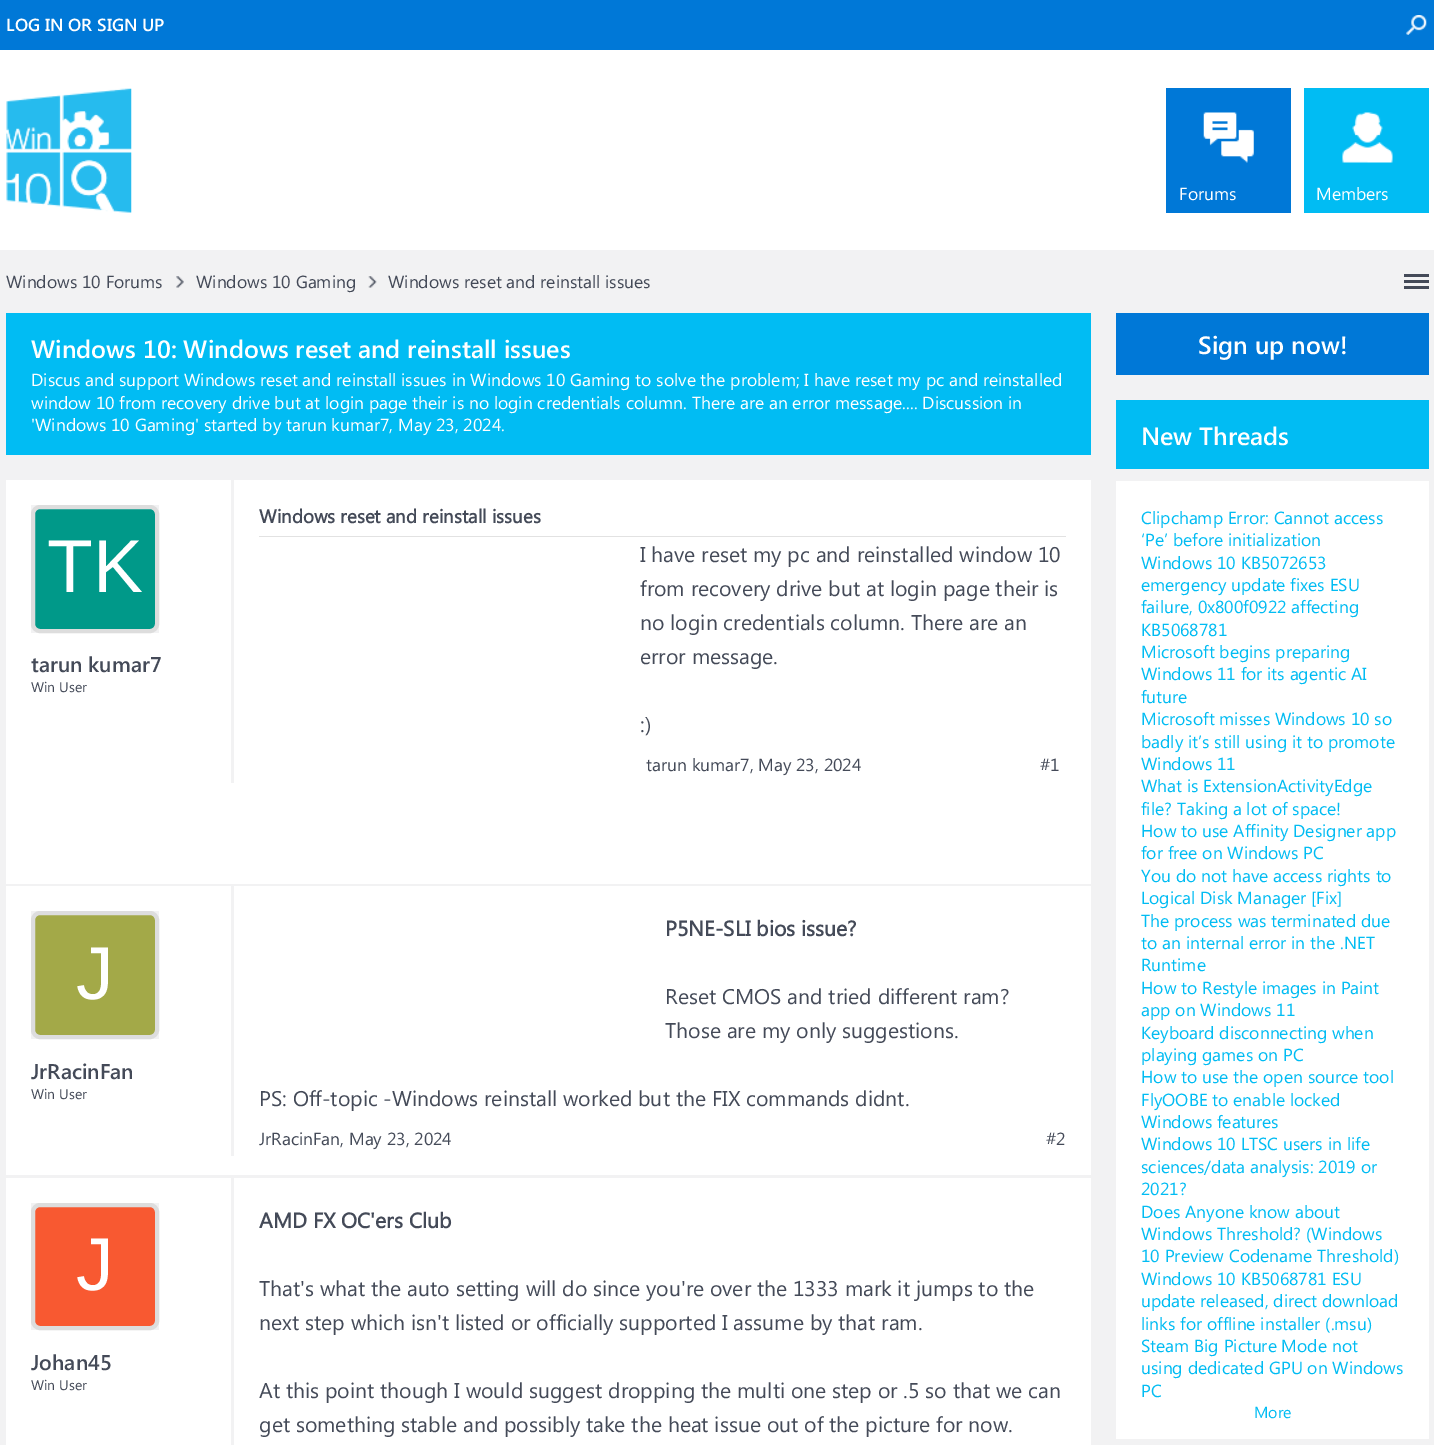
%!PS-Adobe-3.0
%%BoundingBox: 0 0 1434 1445
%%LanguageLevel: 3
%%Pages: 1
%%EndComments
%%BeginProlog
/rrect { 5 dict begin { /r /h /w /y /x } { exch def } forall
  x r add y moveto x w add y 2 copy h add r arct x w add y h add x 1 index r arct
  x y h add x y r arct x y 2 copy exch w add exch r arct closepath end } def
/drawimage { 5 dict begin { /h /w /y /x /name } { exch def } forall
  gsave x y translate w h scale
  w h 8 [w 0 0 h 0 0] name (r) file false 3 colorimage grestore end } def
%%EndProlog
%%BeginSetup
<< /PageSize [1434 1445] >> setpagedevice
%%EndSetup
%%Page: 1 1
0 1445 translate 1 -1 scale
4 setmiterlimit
0.949 0.949 0.953 setrgbcolor
0 0 1434 1445 rectfill
0 0.471 0.843 setrgbcolor
0 0 1434 50 rectfill
(images/1.raw) 1406 15 21 20 drawimage
1 setgray
0 50 1434 200 rectfill
(images/2.raw) 6 88 126 125 drawimage
0 0.471 0.843 setrgbcolor
1166 88 125 125 rectfill
(images/3.raw) 1203 112 51 51 drawimage
0.004 0.737 0.953 setrgbcolor
1304 88 125 125 rectfill
(images/4.raw) 1342 112 51 51 drawimage
(images/5.raw) 176 276 8 12 drawimage
(images/6.raw) 368 276 9 12 drawimage
0.267 0.29 0.345 setrgbcolor
1404 274 25 3 rectfill
1404 280 25 3 rectfill
1404 286 25 3 rectfill
0.004 0.737 0.953 setrgbcolor
6 313 1085 142 rectfill
1 setgray
6 480 1085 404 rectfill
0.949 0.949 0.953 setrgbcolor
31 505 128 128 rectfill
0 0.6 0.537 setrgbcolor
33 507 124 124 7 rrect gsave fill grestore
0.867 setgray
4 setlinewidth
stroke
0.949 0.949 0.953 setrgbcolor
231 480 3 303 rectfill
0.886 setgray
259 536 807 1 rectfill
1 setgray
6 886 1085 289 rectfill
0.949 0.949 0.953 setrgbcolor
31 911 128 128 rectfill
0.639 0.663 0.282 setrgbcolor
33 913 124 124 7 rrect gsave fill grestore
0.867 setgray
stroke
0.949 0.949 0.953 setrgbcolor
231 886 3 270 rectfill
1 setgray
6 1178 1085 267 rectfill
0.949 0.949 0.953 setrgbcolor
31 1203 128 127 rectfill
0.973 0.349 0.192 setrgbcolor
33 1205 124 123 7 rrect gsave fill grestore
0.867 setgray
stroke
0.949 0.949 0.953 setrgbcolor
231 1178 3 267 rectfill
0 0.471 0.843 setrgbcolor
1116 313 313 62 rectfill
0.004 0.737 0.953 setrgbcolor
1116 400 313 69 rectfill
1 setgray
1116 481 313 958 rectfill
/SegoeUI-SemiBold [17.5 0 0 -17.5 0 0] selectfont
6 31 moveto (LOG IN OR SIGN UP) show
/SegoeUI-Regular [17.5 0 0 -17.5 0 0] selectfont
1179 200 moveto (Forums) show
1316 200 moveto (Members) show
0.267 0.29 0.345 setrgbcolor
6 288 moveto (Windows 10 Forums) show
196 288 moveto (Windows 10 Gaming) show
388 288 moveto (Windows reset and reinstall issues) show
/SegoeUI-SemiBold [25 0 0 -25 0 0] selectfont
1 setgray
31 358 moveto (Windows 10: Windows reset and reinstall issues) show
/SegoeUI-Regular [17.5 0 0 -17.5 0 0] selectfont
31 386 moveto (Discus and support Windows reset and reinstall issues in Windows 10 Gaming to solve the problem; I have reset my pc and reinstalled) show
31 409 moveto (window 10 from recovery drive but at login page their is no login credentials column. There are an error message.... Discussion in) show
31 431 moveto ('Windows 10 Gaming' started by tarun kumar7, May 23, 2024.) show
/LiberationSans-Regular [75 0 0 -75 0 0] selectfont
47 592 moveto (TK) show
/SegoeUI-SemiBold [21.25 0 0 -21.25 0 0] selectfont
0.267 0.29 0.345 setrgbcolor
31 672 moveto (tarun kumar7) show
/SegoeUI-Regular [14 0 0 -14 0 0] selectfont
31 692 moveto (Win User) show
/SegoeUI-Bold [18.75 0 0 -18.75 0 0] selectfont
259 523 moveto (Windows reset and reinstall issues) show
/SegoeUI-Regular [21.25 0 0 -21.25 0 0] selectfont
640 562 moveto (I have reset my pc and reinstalled window 10) show
640 596 moveto (from recovery drive but at login page their is) show
640 630 moveto (no login credentials column. There are an) show
640 664 moveto (error message.) show
640 732 moveto (:\)) show
/SegoeUI-Regular [17.5 0 0 -17.5 0 0] selectfont
646 771 moveto (tarun kumar7, May 23, 2024) show
1040 771 moveto (#1) show
/LiberationSans-Regular [75 0 0 -75 0 0] selectfont
1 setgray
76 999 moveto (J) show
/SegoeUI-SemiBold [21.25 0 0 -21.25 0 0] selectfont
0.267 0.29 0.345 setrgbcolor
31 1079 moveto (JrRacinFan) show
/SegoeUI-Regular [14 0 0 -14 0 0] selectfont
31 1099 moveto (Win User) show
/SegoeUI-Bold [21.25 0 0 -21.25 0 0] selectfont
665 936 moveto (P5NE-SLI bios issue?) show
/SegoeUI-Regular [21.25 0 0 -21.25 0 0] selectfont
665 1004 moveto (Reset CMOS and tried different ram?) show
665 1038 moveto (Those are my only suggestions.) show
259 1106 moveto (PS: Off-topic -Windows reinstall worked but the FIX commands didnt.) show
/SegoeUI-Regular [17.5 0 0 -17.5 0 0] selectfont
259 1145 moveto (JrRacinFan, May 23, 2024) show
1046 1145 moveto (#2) show
/LiberationSans-Regular [75 0 0 -75 0 0] selectfont
1 setgray
76 1290 moveto (J) show
/SegoeUI-SemiBold [21.25 0 0 -21.25 0 0] selectfont
0.267 0.29 0.345 setrgbcolor
31 1370 moveto (Johan45) show
/SegoeUI-Regular [14 0 0 -14 0 0] selectfont
31 1390 moveto (Win User) show
/SegoeUI-Bold [21.25 0 0 -21.25 0 0] selectfont
259 1228 moveto (AMD FX OC'ers Club) show
/SegoeUI-Regular [21.25 0 0 -21.25 0 0] selectfont
259 1296 moveto (That's what the auto setting will do since you're over the 1333 mark it jumps to the) show
259 1330 moveto (next step which isn't listed or officially supported I assume by that ram.) show
259 1398 moveto (At this point though I would suggest dropping the multi one step or .5 so that we can) show
259 1432 moveto (get something stable and possibly take the heat issue out of the picture for now.) show
/SegoeUI-SemiBold [25 0 0 -25 0 0] selectfont
1 setgray
1198 354 moveto (Sign up now!) show
1141 445 moveto (New Threads) show
/SegoeUI-Regular [17.5 0 0 -17.5 0 0] selectfont
0.004 0.737 0.953 setrgbcolor
1141 524 moveto (Clipchamp Error: Cannot access) show
1141 546 moveto (‘Pe’ before initialization) show
1141 569 moveto (Windows 10 KB5072653) show
1141 591 moveto (emergency update fixes ESU) show
1141 613 moveto (failure, 0x800f0922 affecting) show
1141 636 moveto (KB5068781) show
1141 658 moveto (Microsoft begins preparing) show
1141 680 moveto (Windows 11 for its agentic AI) show
1141 703 moveto (future) show
1141 725 moveto (Microsoft misses Windows 10 so) show
1141 748 moveto (badly it’s still using it to promote) show
1141 770 moveto (Windows 11) show
1141 792 moveto (What is ExtensionActivityEdge) show
1141 815 moveto (file? Taking a lot of space!) show
1141 837 moveto (How to use Affinity Designer app) show
1141 859 moveto (for free on Windows PC) show
1141 882 moveto (You do not have access rights to) show
1141 904 moveto (Logical Disk Manager [Fix]) show
1141 927 moveto (The process was terminated due) show
1141 949 moveto (to an internal error in the .NET) show
1141 971 moveto (Runtime) show
1141 994 moveto (How to Restyle images in Paint) show
1141 1016 moveto (app on Windows 11) show
1141 1039 moveto (Keyboard disconnecting when) show
1141 1061 moveto (playing games on PC) show
1141 1083 moveto (How to use the open source tool) show
1141 1106 moveto (FlyOOBE to enable locked) show
1141 1128 moveto (Windows features) show
1141 1150 moveto (Windows 10 LTSC users in life) show
1141 1173 moveto (sciences/data analysis: 2019 or) show
1141 1195 moveto (2021?) show
1141 1218 moveto (Does Anyone know about) show
1141 1240 moveto (Windows Threshold? \(Windows) show
1141 1262 moveto (10 Preview Codename Threshold\)) show
1141 1285 moveto (Windows 10 KB5068781 ESU) show
1141 1307 moveto (update released, direct download) show
1141 1330 moveto (links for offline installer \(.msu\)) show
1141 1352 moveto (Steam Big Picture Mode not) show
1141 1374 moveto (using dedicated GPU on Windows) show
1141 1397 moveto (PC) show
/SegoeUI-Regular [16 0 0 -16 0 0] selectfont
1254 1418 moveto (More) show
showpage
%%EOF
